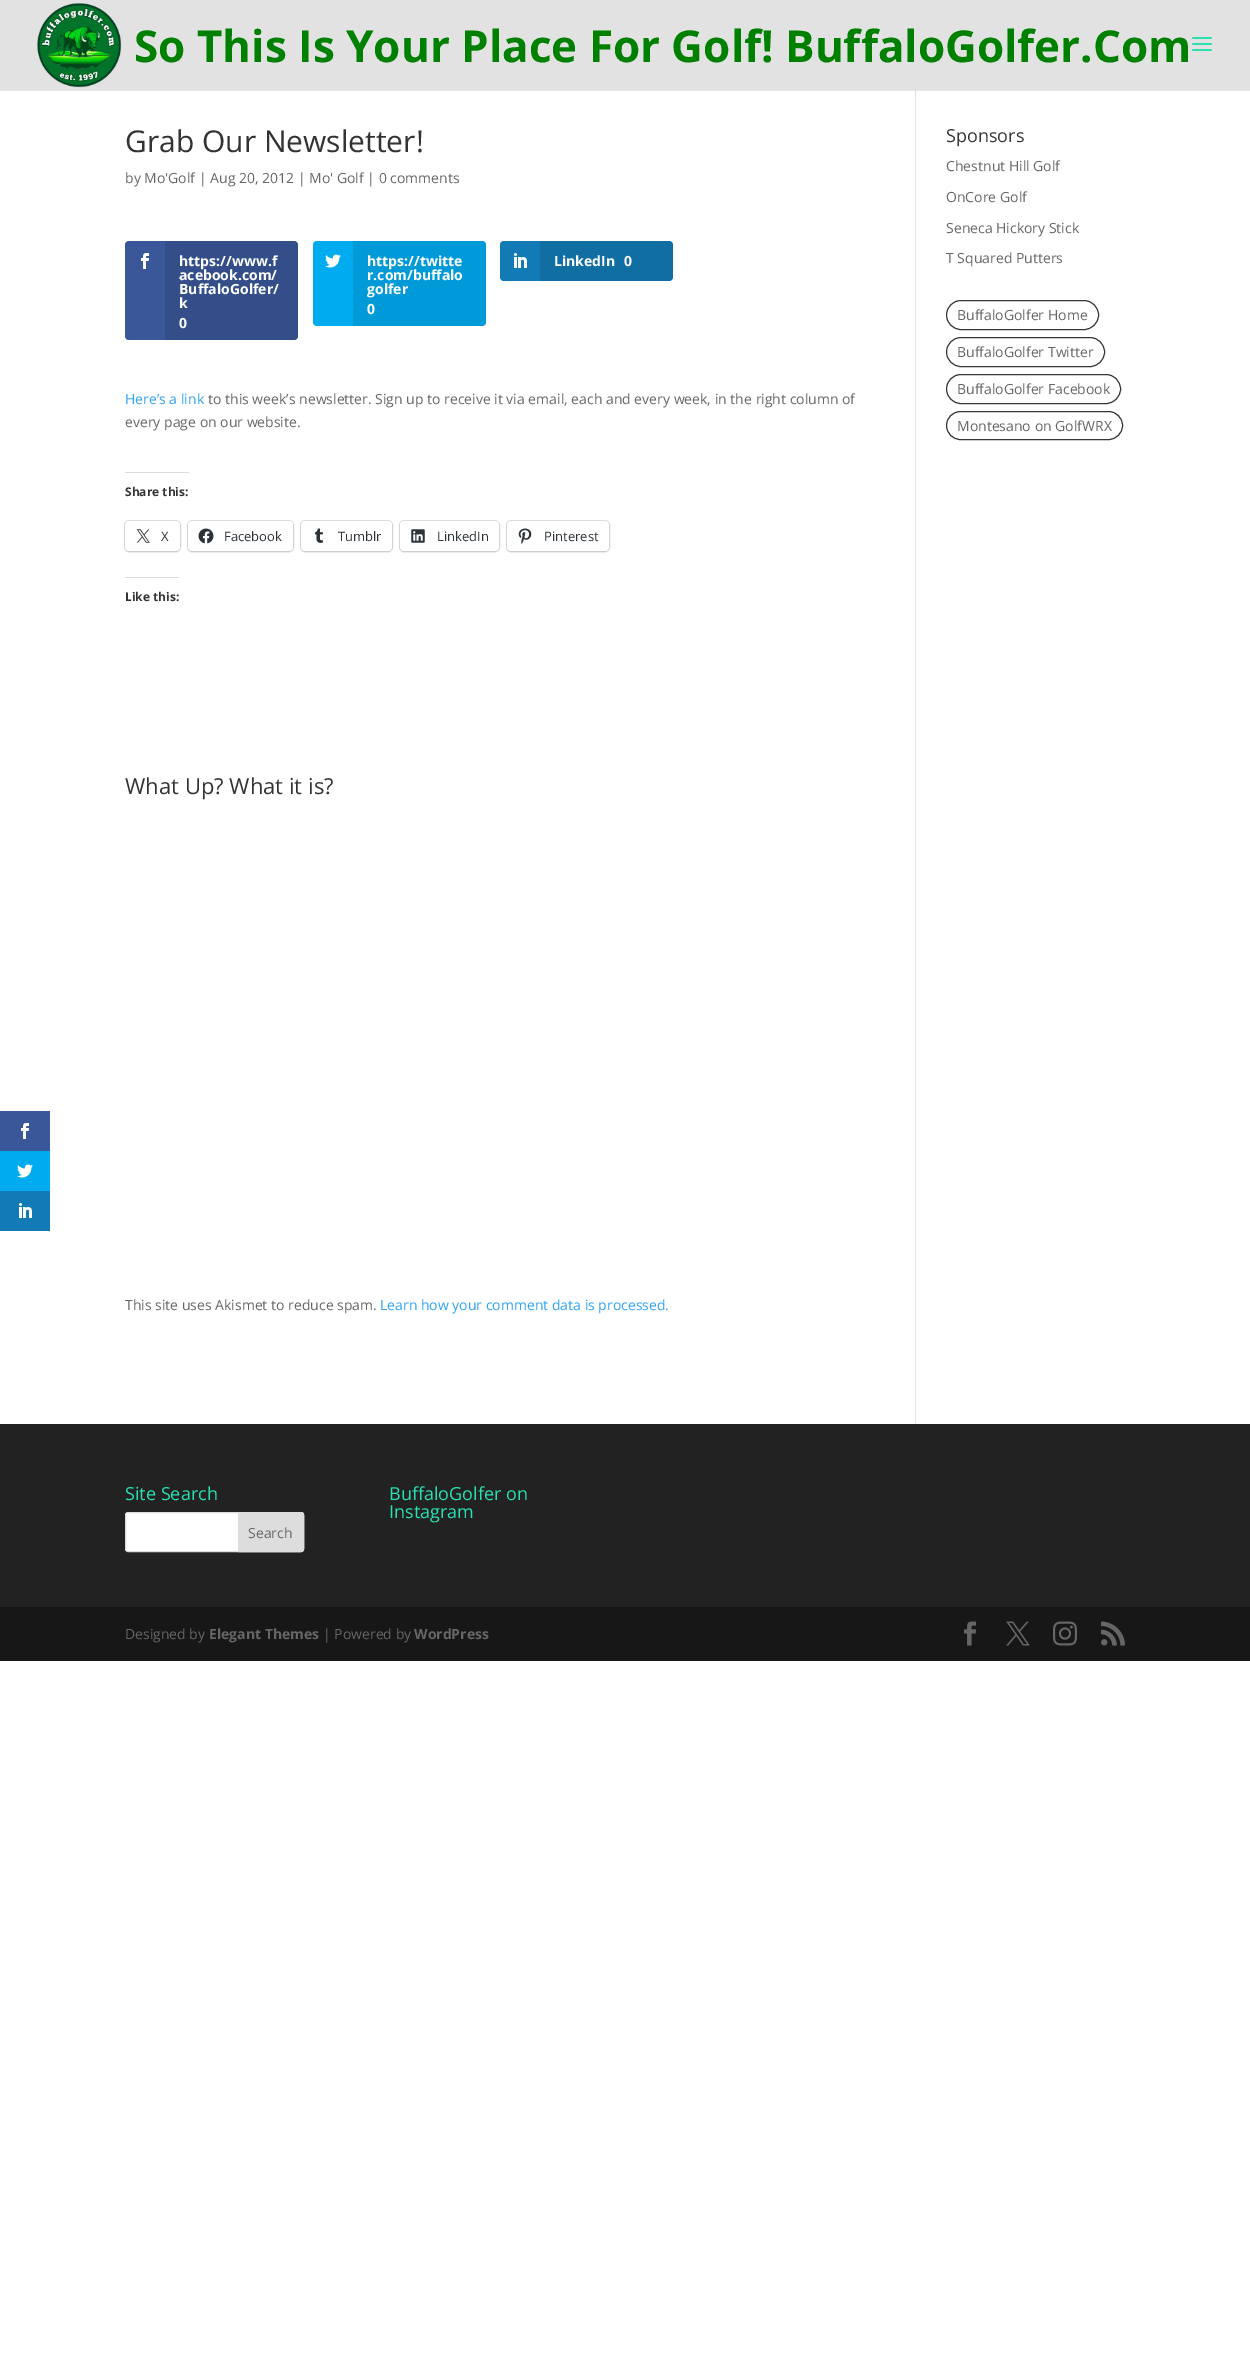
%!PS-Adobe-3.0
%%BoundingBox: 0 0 1250 2373
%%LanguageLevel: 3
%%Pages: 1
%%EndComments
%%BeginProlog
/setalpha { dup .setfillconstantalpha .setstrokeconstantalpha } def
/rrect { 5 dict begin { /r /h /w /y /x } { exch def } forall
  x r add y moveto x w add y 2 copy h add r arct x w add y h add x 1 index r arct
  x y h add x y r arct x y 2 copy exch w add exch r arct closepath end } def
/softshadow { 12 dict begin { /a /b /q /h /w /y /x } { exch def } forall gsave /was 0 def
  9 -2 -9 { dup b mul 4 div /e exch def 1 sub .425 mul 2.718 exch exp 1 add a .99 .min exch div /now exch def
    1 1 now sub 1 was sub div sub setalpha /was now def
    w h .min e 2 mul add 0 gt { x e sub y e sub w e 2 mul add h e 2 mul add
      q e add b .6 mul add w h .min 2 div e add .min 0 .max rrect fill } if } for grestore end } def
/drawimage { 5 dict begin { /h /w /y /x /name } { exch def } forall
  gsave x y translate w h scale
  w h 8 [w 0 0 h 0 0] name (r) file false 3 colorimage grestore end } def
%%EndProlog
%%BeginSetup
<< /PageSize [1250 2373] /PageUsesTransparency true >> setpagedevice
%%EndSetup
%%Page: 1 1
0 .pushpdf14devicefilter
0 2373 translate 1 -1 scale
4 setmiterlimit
1 setgray
0 0 1250 2373 rectfill
0.902 setgray
0 90 1250 1 rectfill
0.227 0.341 0.604 setrgbcolor
0 1111 50 40 rectfill
(images/1.raw) 21 1123 8 16 drawimage
0 0.671 0.941 setrgbcolor
0 1151 50 40 rectfill
(images/2.raw) 17 1164 16 14 drawimage
0.071 0.482 0.714 setrgbcolor
0 1191 50 40 rectfill
(images/3.raw) 19 1203 13 15 drawimage
0.886 setgray
0 0 1250 90 rectfill
(images/4.raw) 37 3 85 85 drawimage
(images/5.raw) 1192 37 20 14 drawimage
915 91 1 1333 rectfill
0.796 setgray
915 90 1 1 rectfill
0.227 0.341 0.604 setrgbcolor
125 241 173 99 4 rrect fill
(images/1.raw) 141 253 8 16 drawimage
0.1 setalpha
0 setgray
newpath 165 241 moveto 294 241 lineto 296 241 298 243 298 245 curveto 298 336 lineto 298 338 296 340 294 340 curveto 165 340 lineto closepath fill
1 setalpha
0 0.671 0.941 setrgbcolor
313 241 173 85 4 rrect fill
(images/2.raw) 325 254 16 14 drawimage
0.1 setalpha
0 setgray
newpath 353 241 moveto 482 241 lineto 484 241 486 243 486 245 curveto 486 322 lineto 486 324 484 326 482 326 curveto 353 326 lineto closepath fill
1 setalpha
0.071 0.482 0.714 setrgbcolor
500 241 173 40 4 rrect fill
(images/3.raw) 514 253 13 15 drawimage
0.1 setalpha
0 setgray
newpath 540 241 moveto 669 241 lineto 671 241 673 243 673 245 curveto 673 277 lineto 673 279 671 281 669 281 curveto 540 281 lineto closepath fill
1 setalpha
0.863 0.863 0.871 setrgbcolor
125 472 64 1 rectfill
0.878 setgray
124.5 520.5 56 31 4.5 rrect stroke
0 setgray
125 522 55 30 4 1 0.12 softshadow
1 setgray
125 521 55 30 4 rrect fill
(images/6.raw) 136 529 14 14 drawimage
0.878 setgray
187.5 520.5 106 31 4.5 rrect stroke
0 setgray
188 522 105 30 4 1 0.12 softshadow
1 setgray
188 521 105 30 4 rrect fill
(images/7.raw) 198 528 16 16 drawimage
0.878 setgray
300.5 520.5 92 31 4.5 rrect stroke
0 setgray
301 522 91 30 4 1 0.12 softshadow
1 setgray
301 521 91 30 4 rrect fill
(images/8.raw) 314 528 10 15 drawimage
0.878 setgray
399.5 520.5 100 31 4.5 rrect stroke
0 setgray
400 522 99 30 4 1 0.12 softshadow
1 setgray
400 521 99 30 4 rrect fill
(images/9.raw) 411 529 14 14 drawimage
0.878 setgray
506.5 520.5 103 31 4.5 rrect stroke
0 setgray
507 522 102 30 4 1 0.12 softshadow
1 setgray
507 521 102 30 4 rrect fill
(images/10.raw) 518 528 14 16 drawimage
0.863 0.863 0.871 setrgbcolor
125 577 54 1 rectfill
0.196 0.216 0.235 setrgbcolor
946.5 300.5 152 29 14.5 rrect stroke
946.5 337.5 158 29 14.5 rrect stroke
946.5 374.5 174 29 14.5 rrect stroke
946.5 411.5 176 28 14 rrect stroke
0.133 setgray
0 1424 1250 183 rectfill
1 setgray
125.5 1512.5 178 39 2.5 rrect gsave fill grestore
0.867 setgray
stroke
newpath 238.5 1512.5 moveto 301 1512.5 lineto 302.5 1512.5 303.5 1513.5 303.5 1515 curveto 303.5 1549 lineto 303.5 1550.5 302.5 1551.5 301 1551.5 curveto 238.5 1551.5 lineto closepath gsave fill grestore
stroke
0.09 setgray
0 1607 1250 54 rectfill
(images/11.raw) 964 1621 12 25 drawimage
(images/12.raw) 1006 1621 24 25 drawimage
(images/13.raw) 1053 1621 24 25 drawimage
(images/14.raw) 1101 1621 24 25 drawimage
/OpenSans-Bold [44 0 0 -44 0 0] selectfont
0 0.502 0 setrgbcolor
134 62 moveto (So This Is Your Place For Golf! BuffaloGolfer.Com) show
/OpenSans-Regular [30 0 0 -30 0 0] selectfont
0.2 setgray
125 152 moveto (Grab Our Newsletter!) show
/OpenSans-Regular [14 0 0 -14 0 0] selectfont
0.4 setgray
125 183 moveto (by Mo'Golf | Aug 20, 2012 | Mo' Golf | 0 comments) show
/OpenSans-Bold [14 0 0 -14 0 0] selectfont
1 setgray
179 266 moveto (https://www.f) show
179 280 moveto (acebook.com/) show
179 294 moveto (BuffaloGolfer/) show
179 308 moveto (k) show
179 328 moveto (0) show
367 266 moveto (https://twitte) show
367 280 moveto (r.com/buffalo) show
367 294 moveto (golfer) show
367 314 moveto (0) show
554 266 moveto (LinkedIn) show
624 266 moveto (0) show
/OpenSans-Regular [14 0 0 -14 0 0] selectfont
0.18 0.639 0.949 setrgbcolor
125 404 moveto (Here’s a link) show
0.4 setgray
208 404 moveto (to this week’s newsletter. Sign up to receive it via email, each and every week, in the right column of) show
125 427 moveto (every page on our website.) show
/OpenSans-Bold [12 0 0 -12 0 0] selectfont
0.2 setgray
125 496 moveto (Share this:) show
/OpenSans-Regular [13 0 0 -13 0 0] selectfont
0.173 0.2 0.22 setrgbcolor
161 541 moveto (X) show
224 541 moveto (Facebook) show
338 541 moveto (Tumblr) show
437 541 moveto (LinkedIn) show
544 541 moveto (Pinterest) show
/OpenSans-Bold [12 0 0 -12 0 0] selectfont
0.2 setgray
125 601 moveto (Like this:) show
/OpenSans-Regular [22 0 0 -22 0 0] selectfont
125 794 moveto (What Up? What it is?) show
/OpenSans-Regular [14 0 0 -14 0 0] selectfont
0.4 setgray
125 1310 moveto (This site uses Akismet to reduce spam.) show
0.18 0.639 0.949 setrgbcolor
380 1310 moveto (Learn how your comment data is processed.) show
/OpenSans-Regular [18 0 0 -18 0 0] selectfont
0.2 setgray
946 142 moveto (Sponsors) show
/OpenSans-Regular [14 0 0 -14 0 0] selectfont
0.4 setgray
946 171 moveto (Chestnut Hill Golf) show
946 202 moveto (OnCore Golf) show
946 233 moveto (Seneca Hickory Stick) show
946 263 moveto (T Squared Putters) show
957 320 moveto (BuffaloGolfer Home) show
957 357 moveto (BuffaloGolfer Twitter) show
957 394 moveto (BuffaloGolfer Facebook) show
957 431 moveto (Montesano on GolfWRX) show
/OpenSans-Regular [18 0 0 -18 0 0] selectfont
0.165 0.878 0.698 setrgbcolor
125 1500 moveto (Site Search) show
/OpenSans-Regular [14 0 0 -14 0 0] selectfont
0.4 setgray
248 1538 moveto (Search) show
/OpenSans-Regular [18 0 0 -18 0 0] selectfont
0.165 0.878 0.698 setrgbcolor
389 1500 moveto (BuffaloGolfer on) show
389 1518 moveto (Instagram) show
/OpenSans-Regular [14 0 0 -14 0 0] selectfont
0.4 setgray
125 1639 moveto (Designed by) show
/OpenSans-Bold [14 0 0 -14 0 0] selectfont
209 1639 moveto (Elegant Themes) show
/OpenSans-Regular [14 0 0 -14 0 0] selectfont
323 1639 moveto (| Powered by) show
/OpenSans-Bold [14 0 0 -14 0 0] selectfont
414 1639 moveto (WordPress) show
.poppdf14devicefilter showpage
%%EOF
